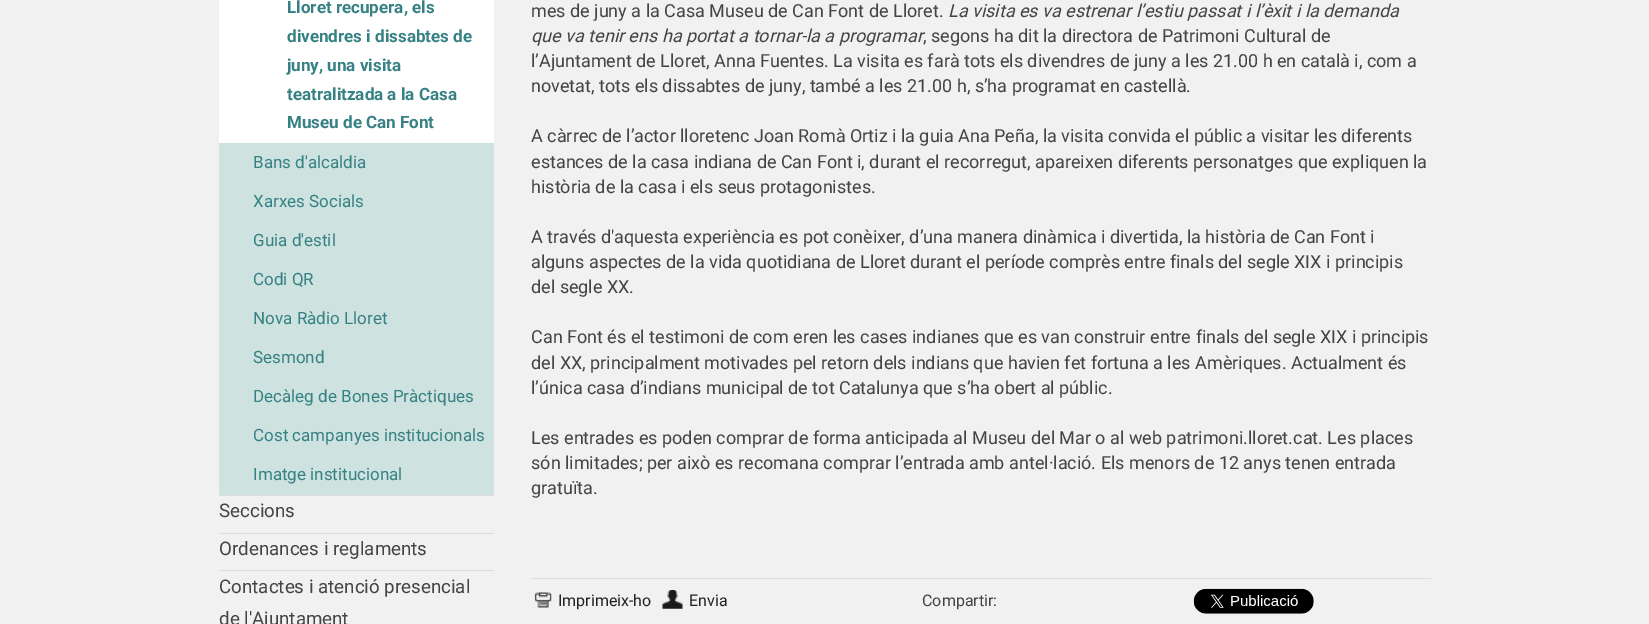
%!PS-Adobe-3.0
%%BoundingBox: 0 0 1649 624
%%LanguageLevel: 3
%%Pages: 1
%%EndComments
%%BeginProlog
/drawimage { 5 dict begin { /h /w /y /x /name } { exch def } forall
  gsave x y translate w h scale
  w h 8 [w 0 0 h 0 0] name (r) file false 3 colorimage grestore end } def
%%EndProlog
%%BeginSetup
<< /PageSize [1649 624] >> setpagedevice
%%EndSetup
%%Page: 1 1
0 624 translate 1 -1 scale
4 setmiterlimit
0.945 setgray
0 0 1649 624 rectfill
0.867 setgray
219 495 275 1 rectfill
1 setgray
219 0 275 143 rectfill
0.808 0.886 0.878 setrgbcolor
219 143 275 352 rectfill
0.867 setgray
219 533 275 1 rectfill
219 570 275 1 rectfill
531 578 900 1 rectfill
(images/1.raw) 534 592 18 16 drawimage
(images/2.raw) 662 590 21 19 drawimage
(images/3.raw) 1193 588 121 26 drawimage
/Roboto-Bold [17 0 0 -17 0 0] selectfont
0.212 0.506 0.518 setrgbcolor
287 13 moveto (Lloret recupera, els) show
287 42 moveto (divendres i dissabtes de) show
287 71 moveto (juny, una visita) show
287 100 moveto (teatralitzada a la Casa) show
287 128 moveto (Museu de Can Font) show
/Roboto-Regular [17 0 0 -17 0 0] selectfont
253 168 moveto (Bans d'alcaldia) show
253 207 moveto (Xarxes Socials) show
253 246 moveto (Guia d'estil) show
253 285 moveto (Codi QR) show
253 324 moveto (Nova Ràdio Lloret) show
253 363 moveto (Sesmond) show
253 402 moveto (Decàleg de Bones Pràctiques) show
253 441 moveto (Cost campanyes institucionals) show
253 480 moveto (Imatge institucional) show
/Roboto-Regular [18.75 0 0 -18.75 0 0] selectfont
0.267 setgray
219 517 moveto (Seccions) show
219 555 moveto (Ordenances i reglaments) show
219 593 moveto (Contactes i atenció presencial) show
219 625 moveto (de l'Ajuntament) show
/Roboto-Regular [18 0 0 -18 0 0] selectfont
531 17 moveto (mes de juny a la Casa Museu de Can Font de Lloret.) show
/Roboto-Italic [18 0 0 -18 0 0] selectfont
948 17 moveto (La visita es va estrenar l’estiu passat i l’èxit i la demanda) show
531 42 moveto (que va tenir ens ha portat a tornar-la a programar) show
/Roboto-Regular [18 0 0 -18 0 0] selectfont
923 42 moveto (, segons ha dit la directora de Patrimoni Cultural de) show
531 67 moveto (l’Ajuntament de Lloret, Anna Fuentes. La visita es farà tots els divendres de juny a les 21.00 h en català i, com a) show
531 92 moveto (novetat, tots els dissabtes de juny, també a les 21.00 h, s’ha programat en castellà.) show
531 142 moveto (A càrrec de l’actor lloretenc Joan Romà Ortiz i la guia Ana Peña, la visita convida el públic a visitar les diferents) show
531 168 moveto (estances de la casa indiana de Can Font i, durant el recorregut, apareixen diferents personatges que expliquen la) show
531 193 moveto (història de la casa i els seus protagonistes.) show
531 243 moveto (A través d'aquesta experiència es pot conèixer, d’una manera dinàmica i divertida, la història de Can Font i) show
531 268 moveto (alguns aspectes de la vida quotidiana de Lloret durant el període comprès entre finals del segle XIX i principis) show
531 293 moveto (del segle XX.) show
531 343 moveto (Can Font és el testimoni de com eren les cases indianes que es van construir entre finals del segle XIX i principis) show
531 369 moveto (del XX, principalment motivades pel retorn dels indians que havien fet fortuna a les Amèriques. Actualment és) show
531 394 moveto (l’única casa d’indians municipal de tot Catalunya que s’ha obert al públic.) show
531 444 moveto (Les entrades es poden comprar de forma anticipada al Museu del Mar o al web patrimoni.lloret.cat. Les places) show
531 469 moveto (són limitades; per això es recomana comprar l’entrada amb antel·lació. Els menors de 12 anys tenen entrada) show
531 494 moveto (gratuïta.) show
/Roboto-Regular [16 0 0 -16 0 0] selectfont
0.133 setgray
558 606 moveto (Imprimeix-ho) show
689 606 moveto (Envia) show
0.267 setgray
922 606 moveto (Compartir:) show
showpage
%%EOF
